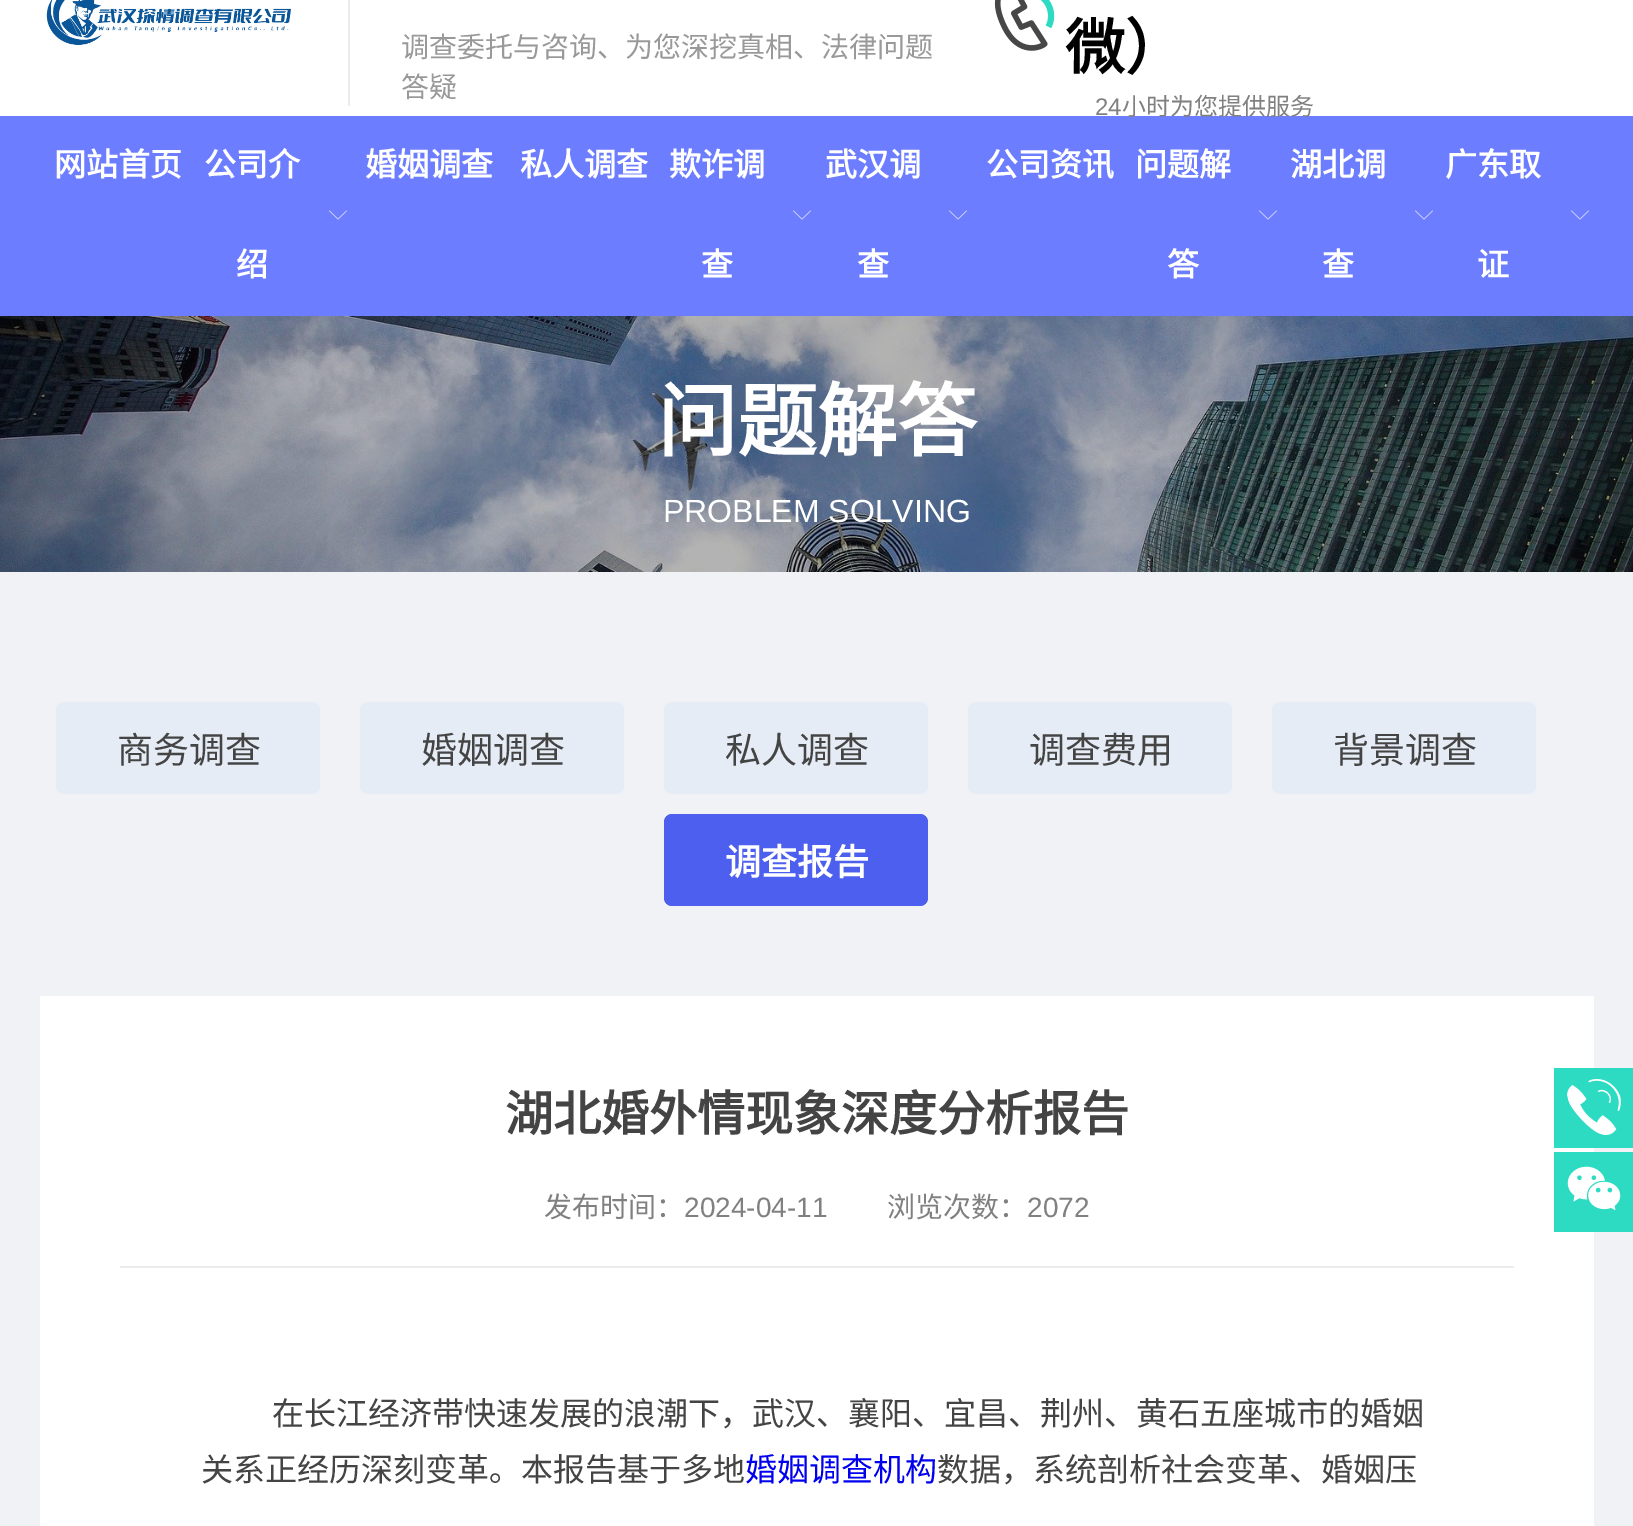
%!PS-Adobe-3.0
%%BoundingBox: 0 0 1633 1526
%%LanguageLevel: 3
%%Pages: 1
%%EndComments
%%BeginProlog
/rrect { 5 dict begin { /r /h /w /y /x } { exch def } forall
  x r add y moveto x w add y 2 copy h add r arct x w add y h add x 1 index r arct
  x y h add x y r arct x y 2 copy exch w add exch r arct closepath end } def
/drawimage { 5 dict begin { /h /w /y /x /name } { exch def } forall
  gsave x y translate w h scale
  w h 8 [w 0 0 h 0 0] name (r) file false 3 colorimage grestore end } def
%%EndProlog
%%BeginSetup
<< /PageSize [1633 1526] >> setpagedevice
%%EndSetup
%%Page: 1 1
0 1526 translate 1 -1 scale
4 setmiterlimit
0.941 0.949 0.961 setrgbcolor
0 0 1633 1526 rectfill
1 setgray
0 0 1633 116 rectfill
(images/1.raw) 46 0 245 45 drawimage
0.922 setgray
348 0 2 106 rectfill
(images/2.raw) 994 0 61 51 drawimage
0.424 0.49 1 setrgbcolor
0 116 1633 200 rectfill
(images/3.raw) 329 210 18 10 drawimage
(images/3.raw) 793 210 18 10 drawimage
(images/3.raw) 949 210 18 10 drawimage
(images/3.raw) 1259 210 18 10 drawimage
(images/3.raw) 1415 210 18 10 drawimage
(images/3.raw) 1571 210 18 10 drawimage
(images/4.raw) 0 316 1633 256 drawimage
0.902 0.925 0.961 setrgbcolor
56 702 264 92 8 rrect fill
360 702 264 92 8 rrect fill
664 702 264 92 8 rrect fill
968 702 264 92 8 rrect fill
1272 702 264 92 8 rrect fill
0.302 0.373 0.933 setrgbcolor
664 814 264 92 8 rrect fill
1 setgray
40 996 1554 530 rectfill
0.922 setgray
120 1266 1394 2 rectfill
0.176 0.859 0.761 setrgbcolor
1554 1068 79 80 rectfill
(images/5.raw) 1567 1079 54 57 drawimage
1554 1152 79 80 rectfill
(images/6.raw) 1567 1166 54 45 drawimage
/NotoSansCJKSC-Regular [28 0 0 -28 0 0] selectfont
0.6 setgray
401 57 moveto (调查委托与咨询、为您深挖真相、法律问题) show
401 97 moveto (答疑) show
/NotoSansCJKSC-Bold [60 0 0 -60 0 0] selectfont
0 setgray
1065 69 moveto (微）) show
/LiberationSans-Regular [24 0 0 -24 0 0] selectfont
0.502 setgray
1095 115 moveto (24) show
/NotoSansCJKSC-Regular [24 0 0 -24 0 0] selectfont
1122 115 moveto (小时为您提供服务) show
/NotoSansCJKSC-Bold [32 0 0 -32 0 0] selectfont
1 setgray
54 176 moveto (网站首页) show
204 176 moveto (公司介) show
236 276 moveto (绍) show
365 176 moveto (婚姻调查) show
520 176 moveto (私人调查) show
669 176 moveto (欺诈调) show
701 276 moveto (查) show
825 176 moveto (武汉调) show
857 276 moveto (查) show
986 176 moveto (公司资讯) show
1135 176 moveto (问题解) show
1167 276 moveto (答) show
1290 176 moveto (湖北调) show
1322 276 moveto (查) show
1445 176 moveto (广东取) show
1477 276 moveto (证) show
/NotoSansCJKSC-Bold [80 0 0 -80 0 0] selectfont
657 450 moveto (问题解答) show
/LiberationSans-Regular [32 0 0 -32 0 0] selectfont
663 522 moveto (PROBLEM SOLVING) show
/NotoSansCJKSC-Regular [36 0 0 -36 0 0] selectfont
0.267 setgray
117 763 moveto (商务调查) show
421 763 moveto (婚姻调查) show
725 763 moveto (私人调查) show
1029 763 moveto (调查费用) show
1333 763 moveto (背景调查) show
/NotoSansCJKSC-Bold [36 0 0 -36 0 0] selectfont
1 setgray
725 875 moveto (调查报告) show
/NotoSansCJKSC-Bold [48 0 0 -48 0 0] selectfont
0.267 setgray
505 1131 moveto (湖北婚外情现象深度分析报告) show
/NotoSansCJKSC-Regular [28 0 0 -28 0 0] selectfont
0.502 setgray
544 1217 moveto (发布时间：) show
/LiberationSans-Regular [28 0 0 -28 0 0] selectfont
684 1217 moveto (2024-04-11) show
/NotoSansCJKSC-Regular [28 0 0 -28 0 0] selectfont
887 1217 moveto (浏览次数：) show
/LiberationSans-Regular [28 0 0 -28 0 0] selectfont
1027 1217 moveto (2072) show
/NotoSansCJKSC-Regular [32 0 0 -32 0 0] selectfont
0.267 setgray
272 1425 moveto (在长江经济带快速发展的浪潮下，武汉、襄阳、宜昌、荆州、黄石五座城市的婚姻) show
201 1481 moveto (关系正经历深刻变革。本报告基于多地) show
0 0 0.933 setrgbcolor
745 1481 moveto (婚姻调查机构) show
0.267 setgray
937 1481 moveto (数据，系统剖析社会变革、婚姻压) show
showpage
%%EOF
